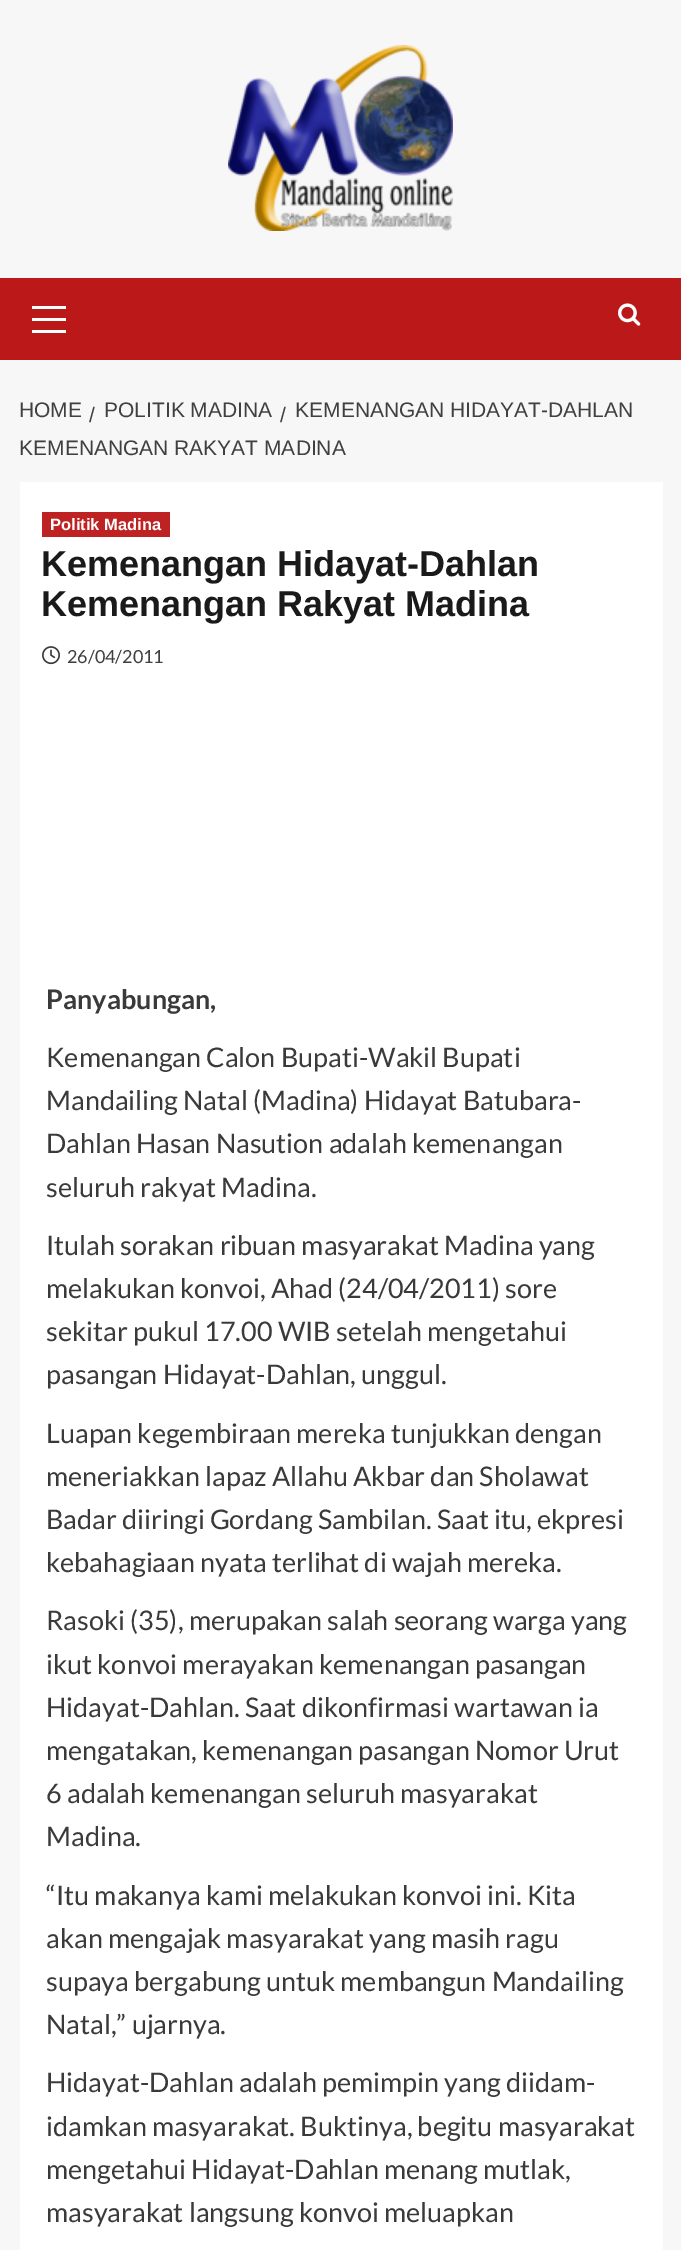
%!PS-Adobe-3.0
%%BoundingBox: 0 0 681 2250
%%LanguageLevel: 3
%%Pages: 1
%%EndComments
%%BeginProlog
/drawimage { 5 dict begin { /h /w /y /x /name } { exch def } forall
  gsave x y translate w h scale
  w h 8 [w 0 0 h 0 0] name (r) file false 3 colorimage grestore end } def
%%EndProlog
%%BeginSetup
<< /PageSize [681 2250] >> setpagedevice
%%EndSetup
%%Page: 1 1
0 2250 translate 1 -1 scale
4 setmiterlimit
0.969 setgray
0 0 681 2250 rectfill
(images/1.raw) 228 45 225 186 drawimage
0.733 0.098 0.098 setrgbcolor
0 278 681 82 rectfill
1 setgray
32 318 34 3 rectfill
32 306 34 3 rectfill
32 330 34 3 rectfill
(images/2.raw) 618 303 23 23 drawimage
20 482 643 1768 rectfill
0.745 0.133 0.133 setrgbcolor
42 512 128 25 rectfill
(images/3.raw) 42 646 18 19 drawimage
/LiberationSans-Regular [21 0 0 -21 0 0] selectfont
0.251 setgray
19 417 moveto (HOME) show
280 422 moveto (/) show
295 417 moveto (KEMENANGAN HIDAYAT-DAHLAN) show
19 455 moveto (KEMENANGAN RAKYAT MADINA) show
89 422 moveto (/) show
104 417 moveto (POLITIK MADINA) show
/LiberationSans-Bold [16.5 0 0 -16.5 0 0] selectfont
1 setgray
50 530 moveto (Politik Madina) show
/LiberationSans-Bold [36 0 0 -36 0 0] selectfont
0.102 setgray
41 576 moveto (Kemenangan Hidayat-Dahlan) show
41 616 moveto (Kemenangan Rakyat Madina) show
/Lato-Regular [18 0 0 -18 0 0] selectfont
0.251 setgray
67 663 moveto (26/04/2011) show
/Lato-Bold [27 0 0 -27 0 0] selectfont
0.227 setgray
46 1009 moveto (Panyabungan,) show
/Lato-Regular [27 0 0 -27 0 0] selectfont
46 1067 moveto (Kemenangan Calon Bupati-Wakil Bupati) show
46 1110 moveto (Mandailing Natal \(Madina\) Hidayat Batubara-) show
46 1153 moveto (Dahlan Hasan Nasution adalah kemenangan) show
46 1197 moveto (seluruh rakyat Madina.) show
46 1255 moveto (Itulah sorakan ribuan masyarakat Madina yang) show
46 1298 moveto (melakukan konvoi, Ahad \(24/04/2011\) sore) show
46 1341 moveto (sekitar pukul 17.00 WIB setelah mengetahui) show
46 1384 moveto (pasangan Hidayat-Dahlan, unggul.) show
46 1443 moveto (Luapan kegembiraan mereka tunjukkan dengan) show
46 1486 moveto (meneriakkan lapaz Allahu Akbar dan Sholawat) show
46 1529 moveto (Badar diiringi Gordang Sambilan. Saat itu, ekpresi) show
46 1572 moveto (kebahagiaan nyata terlihat di wajah mereka.) show
46 1630 moveto (Rasoki \(35\), merupakan salah seorang warga yang) show
46 1674 moveto (ikut konvoi merayakan kemenangan pasangan) show
46 1717 moveto (Hidayat-Dahlan. Saat dikonfirmasi wartawan ia) show
46 1760 moveto (mengatakan, kemenangan pasangan Nomor Urut) show
46 1803 moveto (6 adalah kemenangan seluruh masyarakat) show
46 1846 moveto (Madina.) show
46 1905 moveto (“Itu makanya kami melakukan konvoi ini. Kita) show
46 1948 moveto (akan mengajak masyarakat yang masih ragu) show
46 1991 moveto (supaya bergabung untuk membangun Mandailing) show
46 2034 moveto (Natal,” ujarnya.) show
46 2092 moveto (Hidayat-Dahlan adalah pemimpin yang diidam-) show
46 2136 moveto (idamkan masyarakat. Buktinya, begitu masyarakat) show
46 2179 moveto (mengetahui Hidayat-Dahlan menang mutlak,) show
46 2222 moveto (masyarakat langsung konvoi meluapkan) show
showpage
%%EOF
